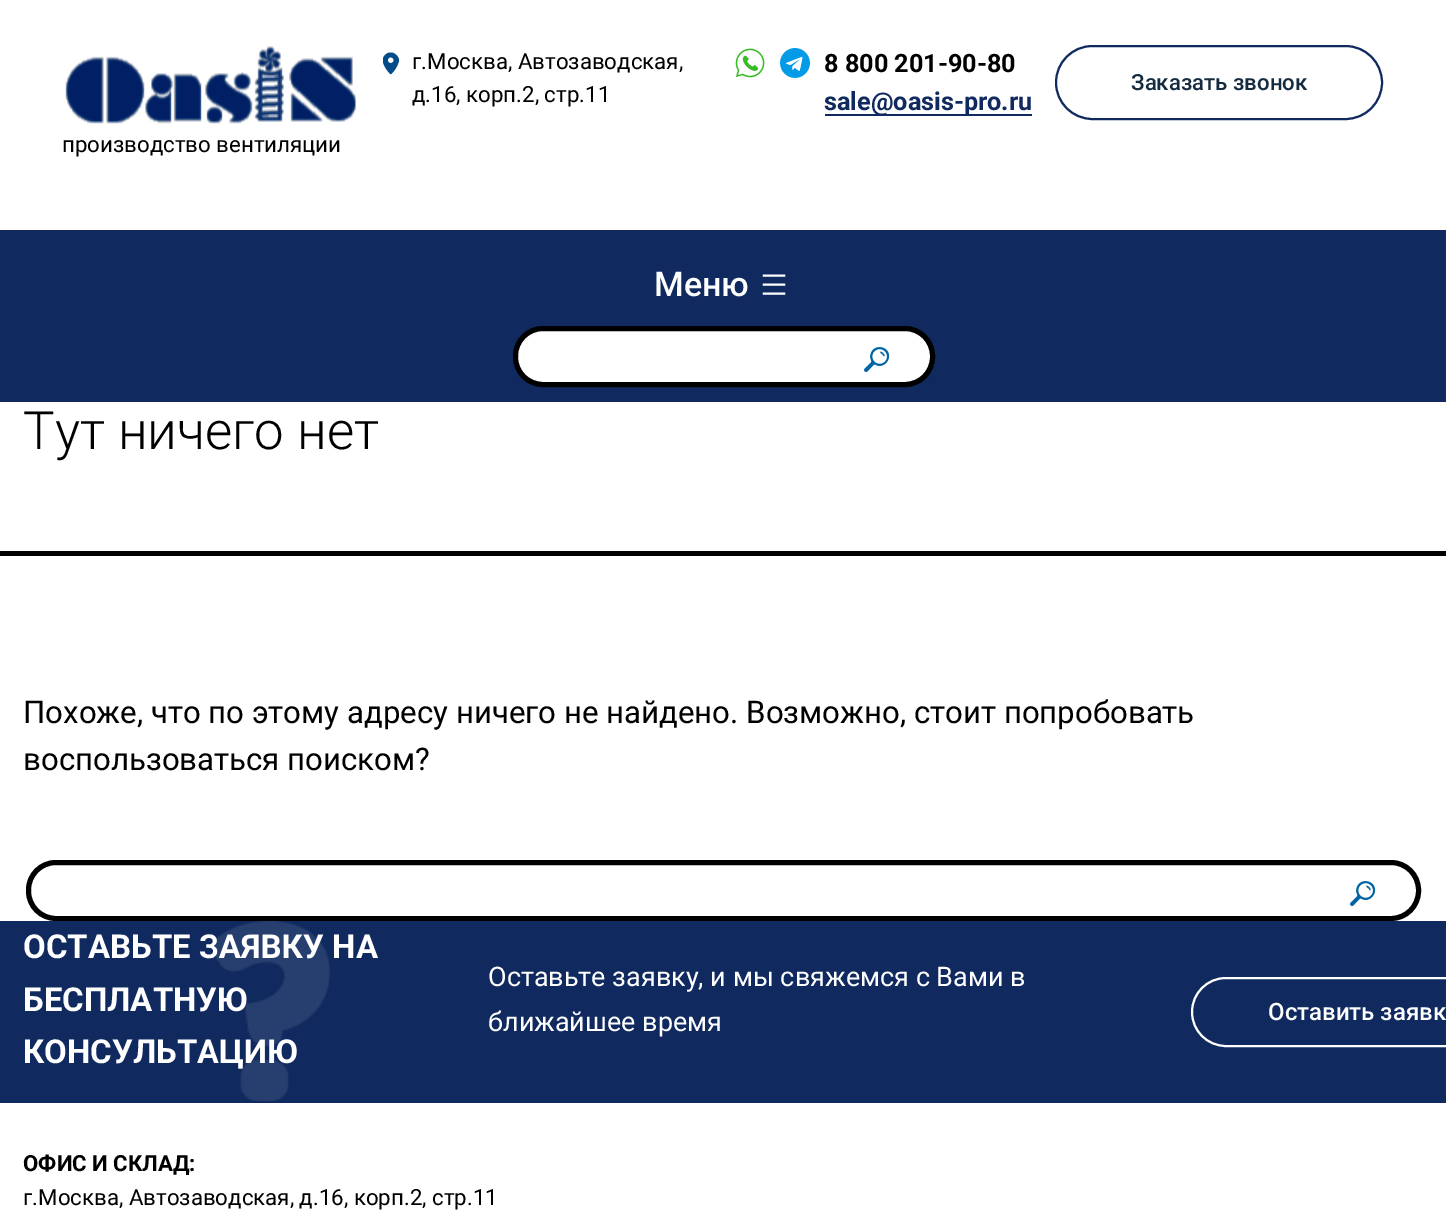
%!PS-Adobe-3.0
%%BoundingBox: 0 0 1446 1226
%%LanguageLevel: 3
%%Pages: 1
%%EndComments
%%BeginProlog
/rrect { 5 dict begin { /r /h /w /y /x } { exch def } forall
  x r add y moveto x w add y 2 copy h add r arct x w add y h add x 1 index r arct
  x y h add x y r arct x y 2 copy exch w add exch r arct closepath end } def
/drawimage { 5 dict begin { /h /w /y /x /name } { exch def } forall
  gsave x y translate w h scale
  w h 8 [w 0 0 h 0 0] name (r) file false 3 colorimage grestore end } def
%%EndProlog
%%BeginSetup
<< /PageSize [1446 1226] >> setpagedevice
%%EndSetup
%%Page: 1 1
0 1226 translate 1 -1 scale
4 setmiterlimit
1 setgray
0 0 1446 1226 rectfill
(images/1.raw) 383 52 16 23 drawimage
(images/2.raw) 735 48 30 30 drawimage
(images/3.raw) 780 48 30 30 drawimage
0.063 0.165 0.373 setrgbcolor
825 114 207 2 rectfill
2 setlinewidth
1056 46 326 73 36.5 rrect stroke
(images/4.raw) 65 46 291 78 drawimage
0 230 1446 172 rectfill
(images/5.raw) 762 274 24 21 drawimage
1 setgray
515.5 328.5 417 56 27.5 rrect gsave fill grestore
0 setgray
5 setlinewidth
stroke
(images/6.raw) 864 347 26 25 drawimage
0 551 1446 5 rectfill
28.5 862.5 1390 56 27.5 rrect stroke
(images/6.raw) 1350 881 26 25 drawimage
0.063 0.165 0.373 setrgbcolor
0 921 1446 182 rectfill
1 setgray
2 setlinewidth
1192 978 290 68 34 rrect stroke
/Roboto-Regular [22.25 0 0 -22.25 0 0] selectfont
0 setgray
412 69 moveto (г.Москва, Автозаводская,) show
412 102 moveto (д.16, корп.2, стр.11) show
/Roboto-Bold [25.25 0 0 -25.25 0 0] selectfont
824 72 moveto (8 800 201-90-80) show
0.063 0.165 0.373 setrgbcolor
824 110 moveto (sale@oasis-pro.ru) show
/Roboto-Medium [22.25 0 0 -22.25 0 0] selectfont
0.078 0.169 0.259 setrgbcolor
1131 90 moveto (Заказать звонок) show
/Roboto-Regular [22.25 0 0 -22.25 0 0] selectfont
0 setgray
62 152 moveto (производство вентиляции) show
/Roboto-Medium [34 0 0 -34 0 0] selectfont
1 setgray
654 296 moveto (Меню) show
/Roboto-Light [52.75 0 0 -52.75 0 0] selectfont
0 setgray
23 449 moveto (Тут ничего нет) show
/Roboto-Regular [31.2 0 0 -31.2 0 0] selectfont
23 723 moveto (Похоже, что по этому адресу ничего не найдено. Возможно, стоит попробовать) show
23 770 moveto (воспользоваться поиском?) show
/Roboto-Bold [33 0 0 -33 0 0] selectfont
1 setgray
23 958 moveto (ОСТАВЬТЕ ЗАЯВКУ НА) show
23 1011 moveto (БЕСПЛАТНУЮ) show
23 1063 moveto (КОНСУЛЬТАЦИЮ) show
(images/7.raw) 214 921 116 180 drawimage
/Roboto-Regular [27 0 0 -27 0 0] selectfont
488 986 moveto (Оставьте заявку, и мы свяжемся с Вами в) show
488 1031 moveto (ближайшее время) show
/Roboto-Medium [24 0 0 -24 0 0] selectfont
1268 1020 moveto (Оставить заявк) show
/Roboto-Bold [22.25 0 0 -22.25 0 0] selectfont
0 setgray
23 1171 moveto (ОФИС И СКЛАД:) show
/Roboto-Regular [22.25 0 0 -22.25 0 0] selectfont
23 1205 moveto (г.Москва, Автозаводская, д.16, корп.2, стр.11) show
showpage
%%EOF
